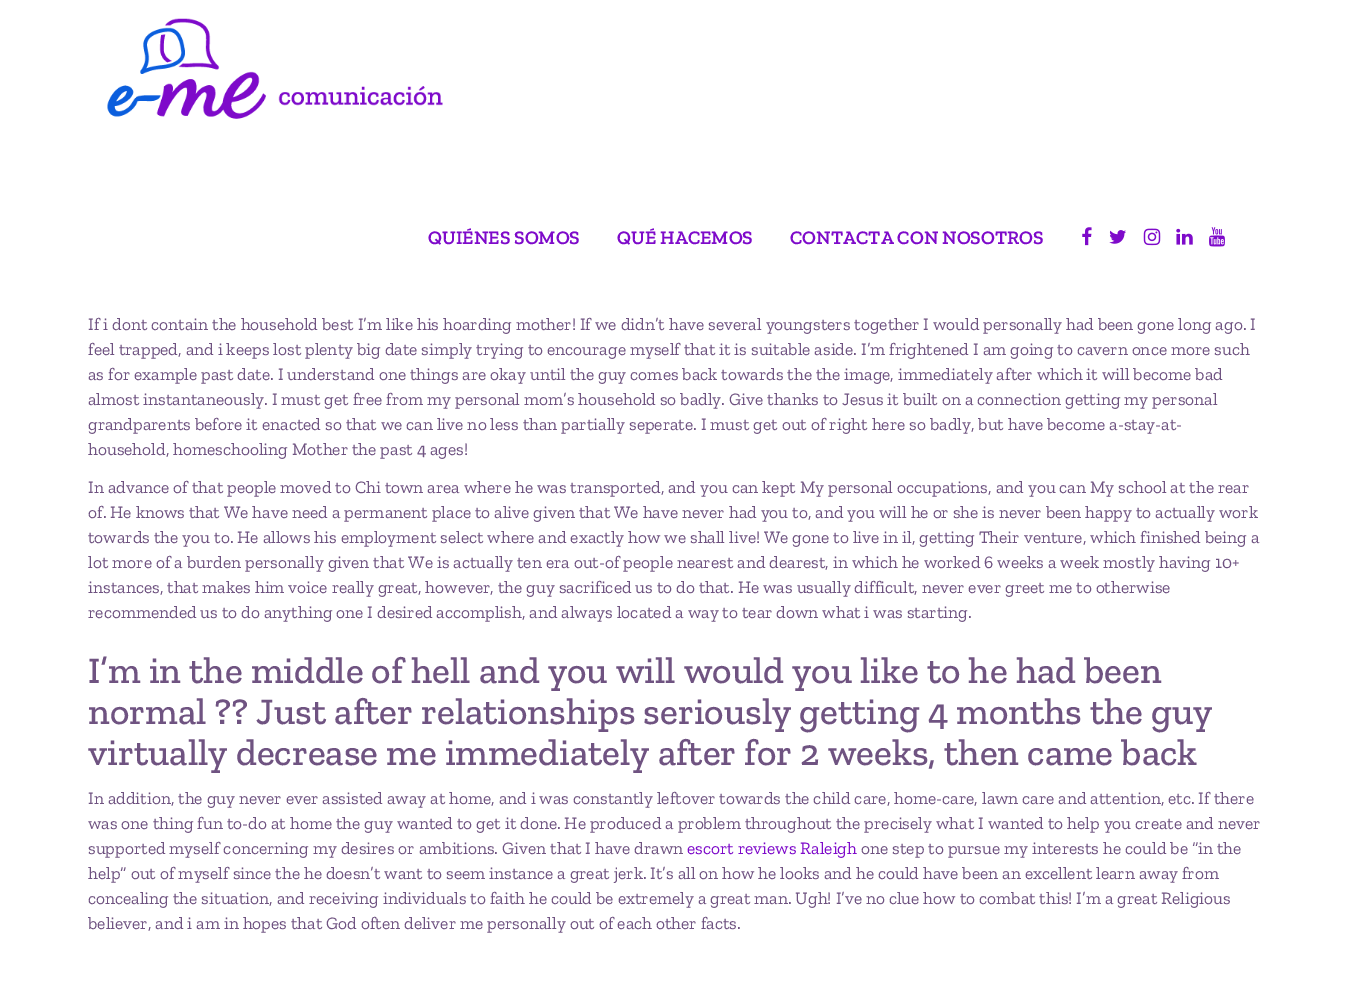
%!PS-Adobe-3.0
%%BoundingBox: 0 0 1351 988
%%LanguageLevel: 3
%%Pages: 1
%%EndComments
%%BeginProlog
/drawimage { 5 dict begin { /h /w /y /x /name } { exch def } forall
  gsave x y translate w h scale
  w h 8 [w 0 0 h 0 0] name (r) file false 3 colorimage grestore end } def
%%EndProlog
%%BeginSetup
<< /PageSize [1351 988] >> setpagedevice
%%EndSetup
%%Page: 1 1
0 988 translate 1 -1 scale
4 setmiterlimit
1 setgray
0 0 1351 988 rectfill
(images/1.raw) 107 18 336 101 drawimage
(images/2.raw) 1082 227 10 19 drawimage
(images/3.raw) 1109 230 17 14 drawimage
(images/4.raw) 1143 228 18 18 drawimage
(images/5.raw) 1176 228 17 17 drawimage
(images/6.raw) 1209 227 16 20 drawimage
/ZillaSlab-SemiBold [19.25 0 0 -19.25 0 0] selectfont
0.494 0.039 0.792 setrgbcolor
428 244 moveto (QUIÉNES SOMOS) show
617 244 moveto (QUÉ HACEMOS) show
790 244 moveto (CONTACTA CON NOSOTROS) show
/ZillaSlab-Regular [17.5 0 0 -17.5 0 0] selectfont
0.435 0.325 0.506 setrgbcolor
88 330 moveto (If i dont contain the household best I’m like his hoarding mother! If we didn’t have several youngsters together I would personally had been gone long ago. I) show
88 355 moveto (feel trapped, and i keeps lost plenty big date simply trying to encourage myself that it is suitable aside. I’m frightened I am going to cavern once more such) show
88 380 moveto (as for example past date. I understand one things are okay until the guy comes back towards the the image, immediately after which it will become bad) show
88 405 moveto (almost instantaneously. I must get free from my personal mom’s household so badly. Give thanks to Jesus it built on a connection getting my personal) show
88 430 moveto (grandparents before it enacted so that we can live no less than partially seperate. I must get out of right here so badly, but have become a-stay-at-) show
88 455 moveto (household, homeschooling Mother the past 4 ages!) show
88 493 moveto (In advance of that people moved to Chi town area where he was transported, and you can kept My personal occupations, and you can My school at the rear) show
88 518 moveto (of. He knows that We have need a permanent place to alive given that We have never had you to, and you will he or she is never been happy to actually work) show
88 543 moveto (towards the you to. He allows his employment select where and exactly how we shall live! We gone to live in il, getting Their venture, which finished being a) show
88 568 moveto (lot more of a burden personally given that We is actually ten era out-of people nearest and dearest, in which he worked 6 weeks a week mostly having 10+) show
88 593 moveto (instances, that makes him voice really great, however, the guy sacrificed us to do that. He was usually difficult, never ever greet me to otherwise) show
88 618 moveto (recommended us to do anything one I desired accomplish, and always located a way to tear down what i was starting.) show
/ZillaSlab-Medium [37.5 0 0 -37.5 0 0] selectfont
88 683 moveto (I’m in the middle of hell and you will would you like to he had been) show
88 724 moveto (normal ?? Just after relationships seriously getting 4 months the guy) show
88 765 moveto (virtually decrease me immediately after for 2 weeks, then came back) show
/ZillaSlab-Regular [17.5 0 0 -17.5 0 0] selectfont
88 804 moveto (In addition, the guy never ever assisted away at home, and i was constantly leftover towards the child care, home-care, lawn care and attention, etc. If there) show
88 829 moveto (was one thing fun to-do at home the guy wanted to get it done. He produced a problem throughout the precisely what I wanted to help you create and never) show
88 854 moveto (supported myself concerning my desires or ambitions. Given that I have drawn) show
0.494 0.039 0.792 setrgbcolor
687 854 moveto (escort reviews Raleigh) show
0.435 0.325 0.506 setrgbcolor
861 854 moveto (one step to pursue my interests he could be “in the) show
88 879 moveto (help” out of myself since the he doesn’t want to seem instance a great jerk. It’s all on how he looks and he could have been an excellent learn away from) show
88 904 moveto (concealing the situation, and receiving individuals to faith he could be extremely a great man. Ugh! I’ve no clue how to combat this! I’m a great Religious) show
88 929 moveto (believer, and i am in hopes that God often deliver me personally out of each other facts.) show
showpage
%%EOF
